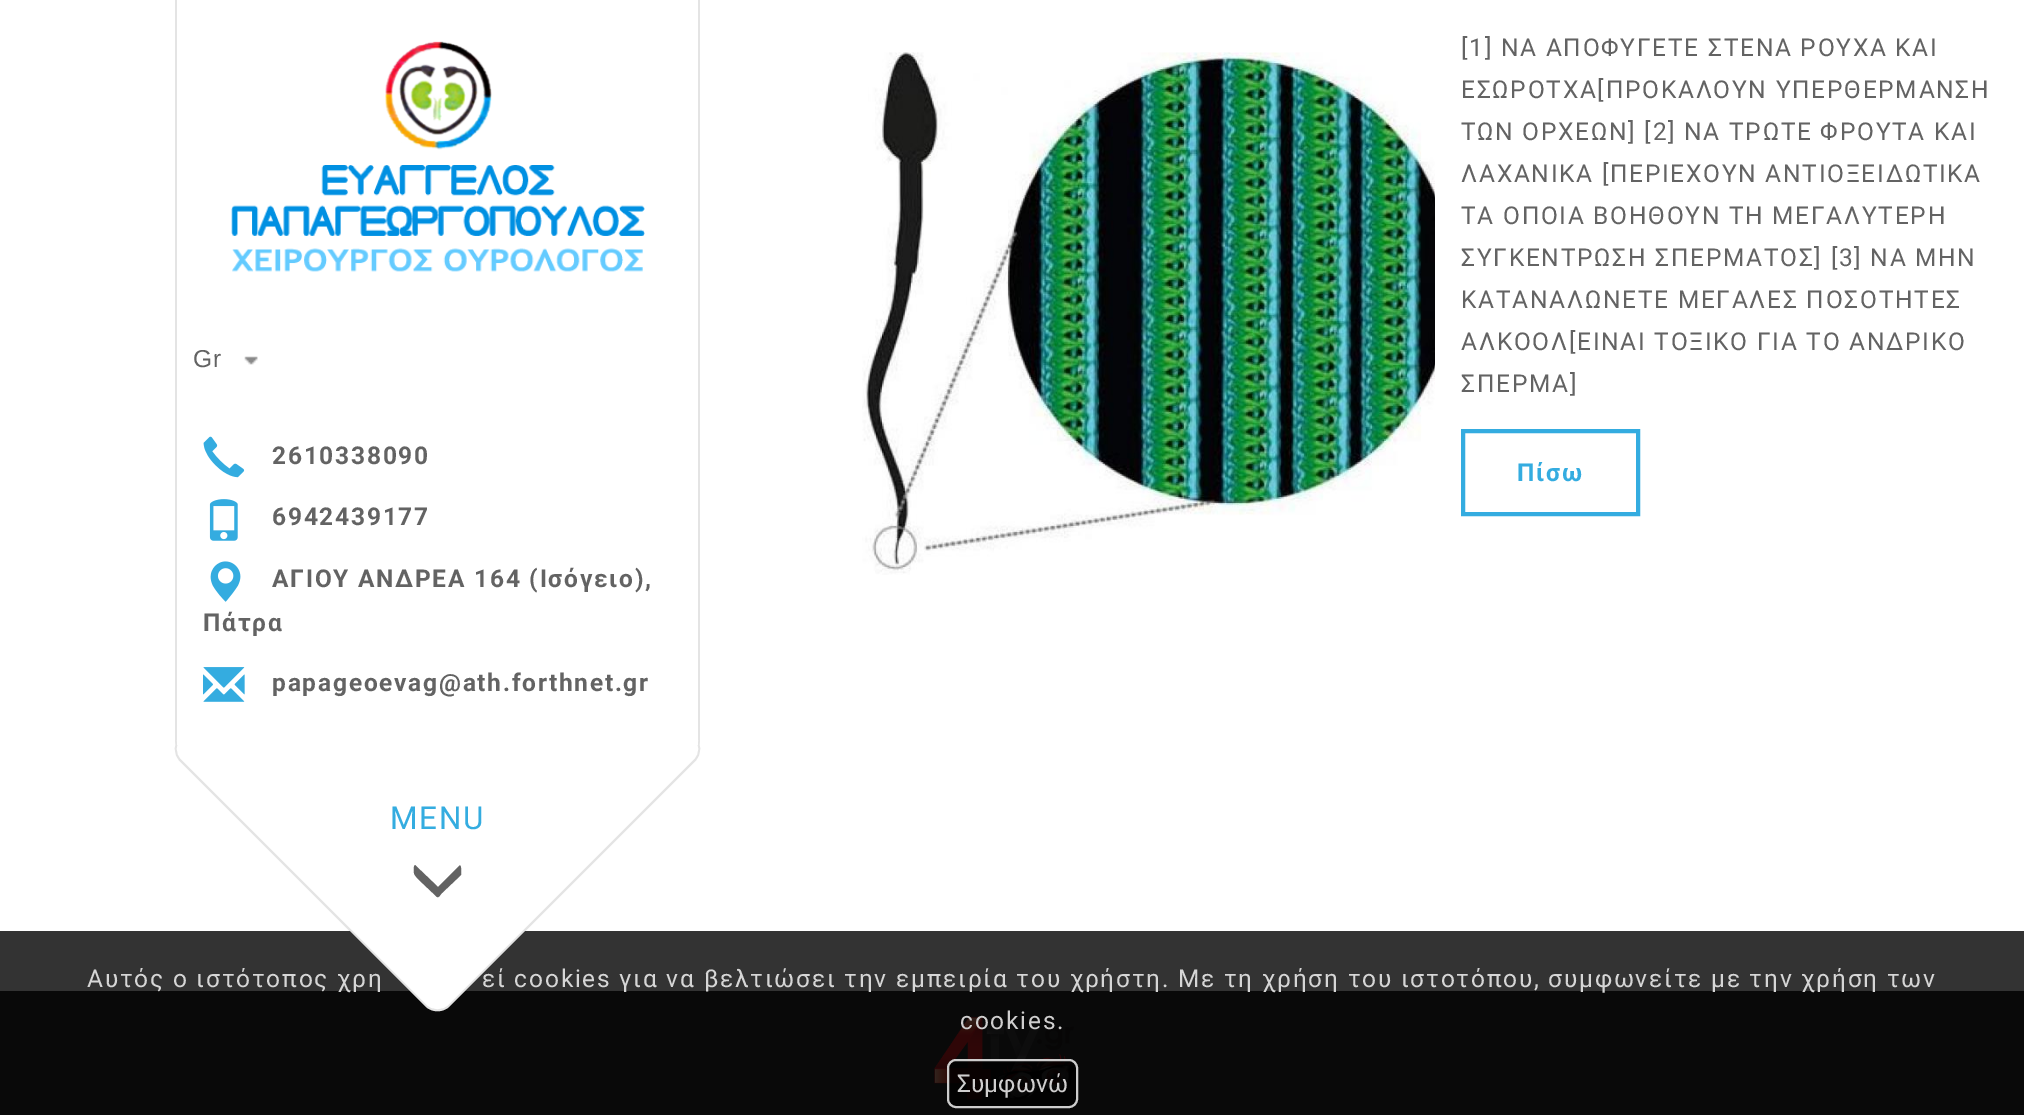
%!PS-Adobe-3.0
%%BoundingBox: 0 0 2024 1115
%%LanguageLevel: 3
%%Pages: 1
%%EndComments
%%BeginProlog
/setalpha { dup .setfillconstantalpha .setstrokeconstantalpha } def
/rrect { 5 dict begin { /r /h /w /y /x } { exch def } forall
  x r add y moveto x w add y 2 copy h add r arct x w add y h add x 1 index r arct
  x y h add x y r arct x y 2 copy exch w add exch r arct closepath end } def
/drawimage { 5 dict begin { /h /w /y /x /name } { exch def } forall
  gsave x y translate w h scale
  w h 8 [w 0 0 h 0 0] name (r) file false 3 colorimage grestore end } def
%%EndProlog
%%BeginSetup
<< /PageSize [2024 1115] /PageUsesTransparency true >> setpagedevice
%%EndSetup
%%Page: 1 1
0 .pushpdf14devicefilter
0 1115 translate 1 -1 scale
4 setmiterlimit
1 setgray
0 0 2024 1115 rectfill
0.2 setgray
0 931 2024 60 rectfill
(images/1.raw) 862 52 573 523 drawimage
0.204 0.675 0.878 setrgbcolor
4 setlinewidth
1463 431 175 83 rectstroke
0.894 setgray
698 0 2 749 rectfill
175 0 2 749 rectfill
(images/2.raw) 231 41 414 231 drawimage
(images/3.raw) 244 356 14 9 drawimage
(images/4.raw) 203 436 42 42 drawimage
0.035 setgray
0 991 2024 124 rectfill
(images/8.raw) 934 1016 140 84 drawimage
0.8 setalpha
0 setgray
947 1059 131 49 9 rrect fill
1 setgray
2 setlinewidth
948 1060 129 47 8 rrect stroke
/Roboto-Regular [24.5 0 0 -24.5 0 0] selectfont
1 setalpha
0.388 setgray
1461 56 moveto 1.75 0 ([1] ΝΑ ΑΠΟΦΥΓΕΤΕ ΣΤΕΝΑ ΡΟΥΧΑ ΚΑΙ) ashow
1461 98 moveto 1.75 0 (ΕΣΩΡΟΤΧΑ[ΠΡΟΚΑΛΟΥΝ ΥΠΕΡΘΕΡΜΑΝΣΗ) ashow
1461 140 moveto 1.75 0 (ΤΩΝ ΟΡΧΕΩΝ] [2] ΝΑ ΤΡΩΤΕ ΦΡΟΥΤΑ ΚΑΙ) ashow
1461 182 moveto 1.75 0 (ΛΑΧΑΝΙΚΑ [ΠΕΡΙΕΧΟΥΝ ΑΝΤΙΟΞΕΙΔΩΤΙΚΑ) ashow
1461 224 moveto 1.75 0 (ΤΑ ΟΠΟΙΑ ΒΟΗΘΟΥΝ ΤΗ ΜΕΓΑΛΥΤΕΡΗ) ashow
1461 266 moveto 1.75 0 (ΣΥΓΚΕΝΤΡΩΣΗ ΣΠΕΡΜΑΤΟΣ] [3] ΝΑ ΜΗΝ) ashow
1461 308 moveto 1.75 0 (ΚΑΤΑΝΑΛΩΝΕΤΕ ΜΕΓΑΛΕΣ ΠΟΣΟΤΗΤΕΣ) ashow
1461 350 moveto 1.75 0 (ΑΛΚΟΟΛ[ΕΙΝΑΙ ΤΟΞΙΚΟ ΓΙΑ ΤΟ ΑΝΔΡΙΚΟ) ashow
1461 392 moveto 1.75 0 (ΣΠΕΡΜΑ]) ashow
/Roboto-Bold [24.5 0 0 -24.5 0 0] selectfont
0.204 0.675 0.878 setrgbcolor
1517 481 moveto 1.75 0 (Πίσω) ashow
/LiberationSans-Regular [24.5 0 0 -24.5 0 0] selectfont
0.388 setgray
193 367 moveto 1 0 (Gr) ashow
/Roboto-Bold [24.5 0 0 -24.5 0 0] selectfont
272 464 moveto 1.75 0 (2610338090) ashow
/Roboto-Regular [24.5 0 0 -24.5 0 0] selectfont
0.839 setgray
87 987 moveto 1.75 0 (Αυτός ο ιστότοπος χρη) ashow
482 987 moveto 1.75 0 (εί cookies για να βελτιώσει την εμπειρία του χρήστη. Με τη χρήση του ιστοτόπου, συμφωνείτε με την χρήση των) ashow
1 setgray
newpath 450 491 moveto 695 736 lineto 702 743 702 754 695 761 curveto 450 1006 lineto 443 1013 432 1013 425 1006 curveto 180 761 lineto 173 754 173 743 180 736 curveto 425 491 lineto 432 484 443 484 450 491 curveto closepath fill
0.13 setalpha
0.176 setgray
1.8 setlinewidth
newpath 449.5 492 moveto 694.5 737 lineto 701 743.5 701 754 694.5 760.5 curveto 449.5 1005.5 lineto 443 1012 432 1012 425.5 1005.5 curveto 180.5 760.5 lineto 174 754 174 743.5 180.5 737 curveto 425.5 492 lineto 432 485.5 443 485.5 449.5 492 curveto closepath stroke
1 setalpha
0.388 setgray
newpath 459 866 moveto 462 863 461 874 461 875 curveto 442 893 lineto 440 895 439 898 437 897 curveto 418 879 lineto 413 873 414 875 414 866 curveto 414 866 415 865 415 865 curveto 438 887 lineto closepath fill
/Roboto-Regular [31.5 0 0 -31.5 0 0] selectfont
0.204 0.675 0.878 setrgbcolor
390 829 moveto 1.75 0 (MENU) ashow
1 setgray
177 486 521 259 rectfill
(images/7.raw) 203 667 42 35 drawimage
(images/6.raw) 210 561 31 41 drawimage
(images/5.raw) 209 499 29 42 drawimage
/Roboto-Bold [24.5 0 0 -24.5 0 0] selectfont
0.388 setgray
272 691 moveto 1.75 0 (papageoevag@ath.forthnet.gr) ashow
203 631 moveto 1.75 0 (Πάτρα) ashow
272 587 moveto 1.75 0 (ΑΓΙΟΥ ΑΝΔΡΕΑ 164 \(Ισόγειο\),) ashow
272 525 moveto 1.75 0 (6942439177) ashow
/Roboto-Regular [24.5 0 0 -24.5 0 0] selectfont
0.812 0.808 0.808 setrgbcolor
960 1029 moveto 1.75 0 (cookies.) ashow
957 1092 moveto (Συμφωνώ) show
.poppdf14devicefilter showpage
%%EOF
